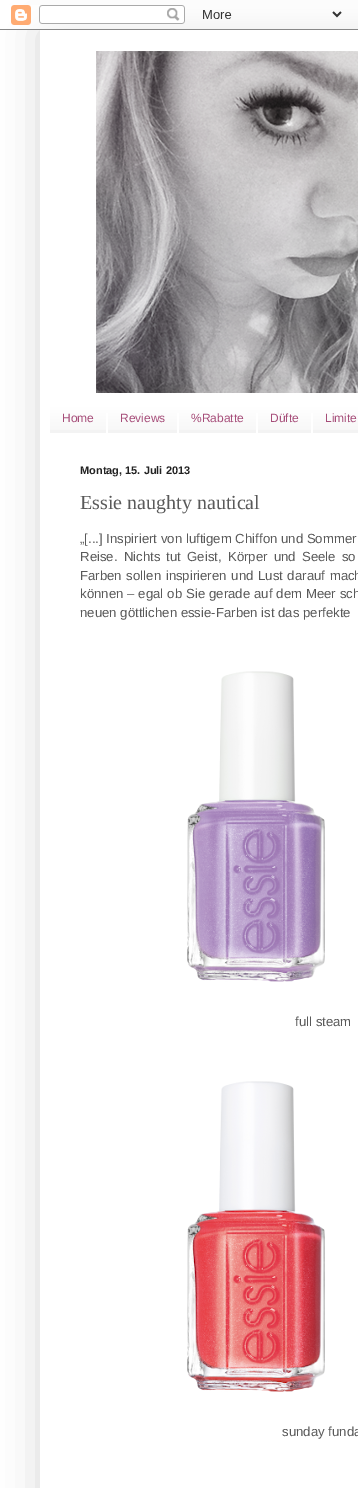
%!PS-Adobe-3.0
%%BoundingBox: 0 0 358 1488
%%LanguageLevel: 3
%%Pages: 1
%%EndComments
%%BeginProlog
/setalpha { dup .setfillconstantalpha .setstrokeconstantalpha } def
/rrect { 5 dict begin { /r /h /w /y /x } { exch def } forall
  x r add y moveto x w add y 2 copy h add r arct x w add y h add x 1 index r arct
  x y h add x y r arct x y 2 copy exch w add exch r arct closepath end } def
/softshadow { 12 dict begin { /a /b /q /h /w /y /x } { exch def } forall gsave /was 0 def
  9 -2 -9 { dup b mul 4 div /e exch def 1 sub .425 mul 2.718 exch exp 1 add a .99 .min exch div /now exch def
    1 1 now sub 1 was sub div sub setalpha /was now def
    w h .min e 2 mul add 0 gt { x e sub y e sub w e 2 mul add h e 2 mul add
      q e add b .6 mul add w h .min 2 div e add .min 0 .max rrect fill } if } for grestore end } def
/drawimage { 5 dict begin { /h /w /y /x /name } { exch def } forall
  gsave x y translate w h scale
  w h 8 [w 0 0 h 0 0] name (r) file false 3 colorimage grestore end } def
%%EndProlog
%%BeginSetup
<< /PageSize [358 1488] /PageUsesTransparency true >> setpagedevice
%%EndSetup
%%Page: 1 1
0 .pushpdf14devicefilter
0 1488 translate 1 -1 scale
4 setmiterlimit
1 setgray
0 0 358 1488 rectfill
gsave
newpath 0 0 moveto 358 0 lineto 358 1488 lineto 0 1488 lineto closepath 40 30 moveto 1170 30 lineto 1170 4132 lineto 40 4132 lineto closepath eoclip newpath
0 setgray
40 30 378 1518 0 20 0.15 softshadow
grestore
(images/1.raw) 0 5 358 25 drawimage
(images/2.raw) 96 51 262 342 drawimage
0.953 setgray
50 405 308 28 rectfill
(images/3.raw) 50 404 308 26 drawimage
1 setgray
106 413 2 20 rectfill
177 413 2 20 rectfill
256 413 2 20 rectfill
311 413 2 20 rectfill
(images/4.raw) 187 671 138 311 drawimage
(images/5.raw) 187 1081 138 311 drawimage
/LiberationSans-Regular [12 0 0 -12 0 0] selectfont
0.651 0.302 0.475 setrgbcolor
62 422 moveto (Home) show
120 422 moveto (Reviews) show
191 422 moveto (%Rabatte) show
270 422 moveto (Düfte) show
325 422 moveto (Limite) show
/LiberationSans-Bold [11 0 0 -11 0 0] selectfont
0.133 setgray
80 474 moveto (Montag, 15. Juli 2013) show
/LiberationSerif-Regular [20 0 0 -20 0 0] selectfont
0.349 setgray
80 509 moveto (Essie naughty nautical) show
/LiberationSans-Regular [13.2 0 0 -13.2 0 0] selectfont
80 543 moveto („[...] Inspiriert von luftigem Chiffon und Sommer) show
80 561 moveto 2.5 0 32 (Reise. Nichts tut Geist, Körper und Seele so) widthshow
80 580 moveto 1 0 32 (Farben sollen inspirieren und Lust darauf mach) widthshow
80 598 moveto 0.25 0 32 (können – egal ob Sie gerade auf dem Meer sch) widthshow
80 617 moveto (neuen göttlichen essie-Farben ist das perfekte) show
295 1026 moveto (full steam) show
282 1436 moveto (sunday funda) show
.poppdf14devicefilter showpage
%%EOF
